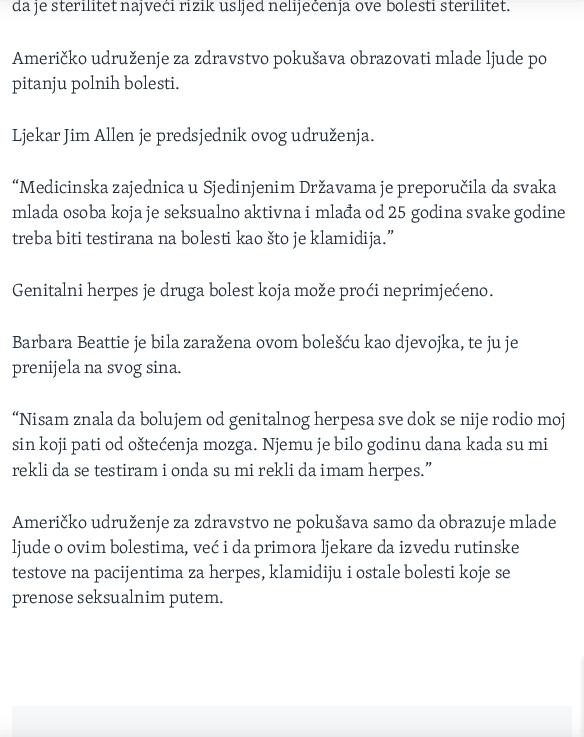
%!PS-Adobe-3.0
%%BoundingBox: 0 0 584 737
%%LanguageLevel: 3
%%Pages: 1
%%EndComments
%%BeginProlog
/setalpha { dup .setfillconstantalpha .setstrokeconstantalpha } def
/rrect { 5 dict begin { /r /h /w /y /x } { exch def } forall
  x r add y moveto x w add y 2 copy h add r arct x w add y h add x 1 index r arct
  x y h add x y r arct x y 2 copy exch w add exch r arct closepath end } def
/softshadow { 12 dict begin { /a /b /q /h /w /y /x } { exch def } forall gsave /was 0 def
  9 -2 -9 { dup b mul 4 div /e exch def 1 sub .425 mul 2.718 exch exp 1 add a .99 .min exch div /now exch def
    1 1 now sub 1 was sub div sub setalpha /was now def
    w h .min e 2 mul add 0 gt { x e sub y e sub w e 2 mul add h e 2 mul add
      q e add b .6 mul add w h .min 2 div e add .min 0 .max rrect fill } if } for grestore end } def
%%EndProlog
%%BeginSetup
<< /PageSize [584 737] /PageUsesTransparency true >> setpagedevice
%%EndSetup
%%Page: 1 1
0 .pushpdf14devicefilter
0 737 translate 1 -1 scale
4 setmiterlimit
1 setgray
0 0 584 737 rectfill
0 setgray
0 -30 584 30 0 10 0.1 softshadow
0.965 0.969 0.973 setrgbcolor
12 706 560 31 rectfill
0 setgray
0 737 584 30 0 10 0.1 softshadow
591 659 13 78 5 5 0.85 softshadow
/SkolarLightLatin-Light [18 0 0 -18 0 0] selectfont
0.133 0.184 0.227 setrgbcolor
12 11 moveto (da je sterilitet najveći rizik usljed neliječenja ove bolesti sterilitet.) show
12 64 moveto (Američko udruženje za zdravstvo pokušava obrazovati mlade ljude po) show
12 89 moveto (pitanju polnih bolesti.) show
12 141 moveto (Ljekar Jim Allen je predsjednik ovog udruženja.) show
12 193 moveto (“Medicinska zajednica u Sjedinjenim Državama je preporučila da svaka) show
12 218 moveto (mlada osoba koja je seksualno aktivna i mlađa od 25 godina svake godine) show
12 244 moveto (treba biti testirana na bolesti kao što je klamidija.”) show
12 296 moveto (Genitalni herpes je druga bolest koja može proći neprimjećeno.) show
12 348 moveto (Barbara Beattie je bila zaražena ovom bolešću kao djevojka, te ju je) show
12 373 moveto (prenijela na svog sina.) show
12 425 moveto (“Nisam znala da bolujem od genitalnog herpesa sve dok se nije rodio moj) show
12 450 moveto (sin koji pati od oštećenja mozga. Njemu je bilo godinu dana kada su mi) show
12 476 moveto (rekli da se testiram i onda su mi rekli da imam herpes.”) show
12 528 moveto (Američko udruženje za zdravstvo ne pokušava samo da obrazuje mlade) show
12 553 moveto (ljude o ovim bolestima, već i da primora ljekare da izvedu rutinske) show
12 578 moveto (testove na pacijentima za herpes, klamidiju i ostale bolesti koje se) show
12 603 moveto (prenose seksualnim putem.) show
.poppdf14devicefilter showpage
%%EOF
